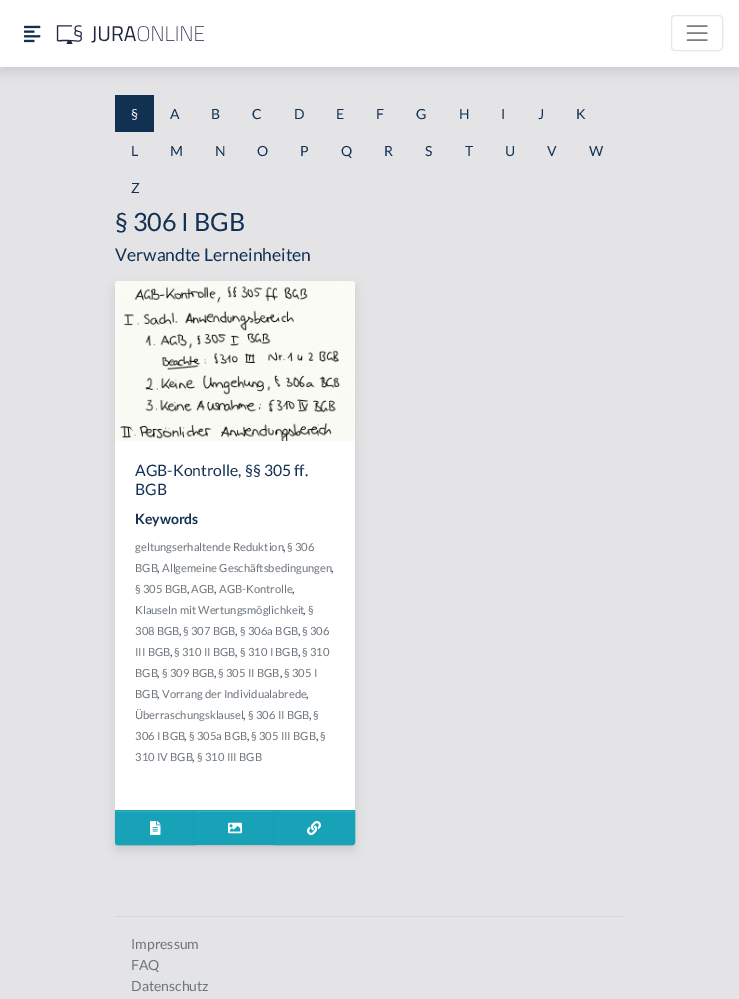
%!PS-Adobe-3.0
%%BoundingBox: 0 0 739 999
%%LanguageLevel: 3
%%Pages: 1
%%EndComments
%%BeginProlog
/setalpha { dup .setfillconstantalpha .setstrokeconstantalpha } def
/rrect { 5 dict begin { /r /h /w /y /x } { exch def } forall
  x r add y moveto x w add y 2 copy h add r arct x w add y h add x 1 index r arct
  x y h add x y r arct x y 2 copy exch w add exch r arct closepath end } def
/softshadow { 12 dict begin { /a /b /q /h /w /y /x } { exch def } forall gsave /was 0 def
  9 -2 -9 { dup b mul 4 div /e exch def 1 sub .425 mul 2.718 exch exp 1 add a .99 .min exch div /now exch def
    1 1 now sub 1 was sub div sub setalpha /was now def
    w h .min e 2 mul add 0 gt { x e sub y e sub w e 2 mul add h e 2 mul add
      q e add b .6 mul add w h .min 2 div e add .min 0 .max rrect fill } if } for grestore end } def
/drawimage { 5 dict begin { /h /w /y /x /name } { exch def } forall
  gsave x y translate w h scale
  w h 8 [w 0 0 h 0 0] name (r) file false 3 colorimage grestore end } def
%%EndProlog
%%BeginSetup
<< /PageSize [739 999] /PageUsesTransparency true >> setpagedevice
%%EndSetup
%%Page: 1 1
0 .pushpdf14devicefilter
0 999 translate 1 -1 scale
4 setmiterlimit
0.894 0.894 0.906 setrgbcolor
0 0 739 999 rectfill
0 setgray
0 5 739 67 0 5 0.1 softshadow
1 setgray
0 0 739 67 rectfill
(images/1.raw) 24 25 17 18 drawimage
(images/2.raw) 56 25 149 19 drawimage
0.902 setgray
671.5 15.5 51 35 3.5 rrect stroke
(images/3.raw) 686 25 22 16 drawimage
0.071 0.188 0.322 setrgbcolor
115 95 39 37 rectfill
0 setgray
115 286 240 564 4 5 0.1 softshadow
1 setgray
115 281 240 564 4 rrect fill
(images/4.raw) 115 281 240 160 drawimage
0 setgray
115 811 80 35 3 0.5 0.07 softshadow
0.09 0.635 0.722 setrgbcolor
newpath 115 810 moveto 195 810 lineto 195 845 lineto 118 845 lineto 116.5 845 115 843.5 115 842 curveto closepath fill
0.227 0.69 0.765 setrgbcolor
116 811 78 1 rectfill
0.09 0.635 0.722 setrgbcolor
newpath 115.5 810.5 moveto 194.5 810.5 lineto 194.5 844.5 lineto 118 844.5 lineto 116.5 844.5 115.5 843.5 115.5 842 curveto closepath stroke
(images/5.raw) 150 821 11 14 drawimage
0 setgray
194 811 81 35 0 0.5 0.07 softshadow
0.09 0.635 0.722 setrgbcolor
194 810 80 35 rectfill
0.227 0.69 0.765 setrgbcolor
195 811 79 1 rectfill
(images/6.raw) 228 822 14 12 drawimage
0 setgray
274 811 81 35 3 0.5 0.07 softshadow
0.09 0.635 0.722 setrgbcolor
newpath 274 810 moveto 355 810 lineto 355 842 lineto 355 843.5 353.5 845 352 845 curveto 274 845 lineto closepath fill
0.227 0.69 0.765 setrgbcolor
275 811 79 1 rectfill
0.09 0.635 0.722 setrgbcolor
newpath 274.5 810.5 moveto 354.5 810.5 lineto 354.5 842 lineto 354.5 843.5 353.5 844.5 352 844.5 curveto 274.5 844.5 lineto closepath stroke
(images/7.raw) 307 821 14 14 drawimage
0.847 0.847 0.859 setrgbcolor
115 916 510 1 rectfill
/Lato-Regular [14 0 0 -14 0 0] selectfont
0.949 0.957 0.965 setrgbcolor
131 119 moveto (§) show
0.071 0.188 0.322 setrgbcolor
170 119 moveto (A) show
211 119 moveto (B) show
252 119 moveto (C) show
294 119 moveto (D) show
336 119 moveto (E) show
376 119 moveto (F) show
416 119 moveto (G) show
459 119 moveto (H) show
501 119 moveto (I) show
538 119 moveto (J) show
576 119 moveto (K) show
131 156 moveto (L) show
170 156 moveto (M) show
215 156 moveto (N) show
257 156 moveto (O) show
300 156 moveto (P) show
341 156 moveto (Q) show
384 156 moveto (R) show
425 156 moveto (S) show
465 156 moveto (T) show
505 156 moveto (U) show
547 156 moveto (V) show
589 156 moveto (W) show
131 193 moveto (Z) show
/Lato-Regular [25.25 0 0 -25.25 0 0] selectfont
115 231 moveto (§ 306 I BGB) show
/Lato-Regular [17.5 0 0 -17.5 0 0] selectfont
115 261 moveto (Verwandte Lerneinheiten) show
/Lato-Regular [15.75 0 0 -15.75 0 0] selectfont
135 476 moveto (AGB-Kontrolle, §§ 305 ff.) show
135 495 moveto (BGB) show
/Lato-Bold [14 0 0 -14 0 0] selectfont
135 524 moveto (Keywords) show
/Lato-Regular [11.25 0 0 -11.25 0 0] selectfont
0.424 0.459 0.49 setrgbcolor
135 551 moveto (geltungserhaltende Reduktion) show
0.071 0.188 0.322 setrgbcolor
283 551 moveto (,) show
0.424 0.459 0.49 setrgbcolor
287 551 moveto (§ 306) show
135 572 moveto (BGB) show
0.071 0.188 0.322 setrgbcolor
157 572 moveto (,) show
0.424 0.459 0.49 setrgbcolor
162 572 moveto (Allgemeine Geschäftsbedingungen) show
0.071 0.188 0.322 setrgbcolor
331 572 moveto (,) show
0.424 0.459 0.49 setrgbcolor
135 593 moveto (§ 305 BGB) show
0.071 0.188 0.322 setrgbcolor
187 593 moveto (,) show
0.424 0.459 0.49 setrgbcolor
191 593 moveto (AGB) show
0.071 0.188 0.322 setrgbcolor
214 593 moveto (,) show
0.424 0.459 0.49 setrgbcolor
219 593 moveto (AGB-Kontrolle) show
0.071 0.188 0.322 setrgbcolor
292 593 moveto (,) show
0.424 0.459 0.49 setrgbcolor
135 614 moveto (Klauseln mit Wertungsmöglichkeit) show
0.071 0.188 0.322 setrgbcolor
303 614 moveto (,) show
0.424 0.459 0.49 setrgbcolor
308 614 moveto (§) show
135 635 moveto (308 BGB) show
0.071 0.188 0.322 setrgbcolor
179 635 moveto (,) show
0.424 0.459 0.49 setrgbcolor
183 635 moveto (§ 307 BGB) show
0.071 0.188 0.322 setrgbcolor
235 635 moveto (,) show
0.424 0.459 0.49 setrgbcolor
240 635 moveto (§ 306a BGB) show
0.071 0.188 0.322 setrgbcolor
298 635 moveto (,) show
0.424 0.459 0.49 setrgbcolor
302 635 moveto (§ 306) show
135 656 moveto (III BGB) show
0.071 0.188 0.322 setrgbcolor
170 656 moveto (,) show
0.424 0.459 0.49 setrgbcolor
174 656 moveto (§ 310 II BGB) show
0.071 0.188 0.322 setrgbcolor
235 656 moveto (,) show
0.424 0.459 0.49 setrgbcolor
240 656 moveto (§ 310 I BGB) show
0.071 0.188 0.322 setrgbcolor
298 656 moveto (,) show
0.424 0.459 0.49 setrgbcolor
302 656 moveto (§ 310) show
135 677 moveto (BGB) show
0.071 0.188 0.322 setrgbcolor
157 677 moveto (,) show
0.424 0.459 0.49 setrgbcolor
162 677 moveto (§ 309 BGB) show
0.071 0.188 0.322 setrgbcolor
214 677 moveto (,) show
0.424 0.459 0.49 setrgbcolor
218 677 moveto (§ 305 II BGB) show
0.071 0.188 0.322 setrgbcolor
280 677 moveto (,) show
0.424 0.459 0.49 setrgbcolor
284 677 moveto (§ 305 I) show
135 698 moveto (BGB) show
0.071 0.188 0.322 setrgbcolor
157 698 moveto (,) show
0.424 0.459 0.49 setrgbcolor
162 698 moveto (Vorrang der Individualabrede) show
0.071 0.188 0.322 setrgbcolor
306 698 moveto (,) show
0.424 0.459 0.49 setrgbcolor
135 719 moveto (Überraschungsklausel) show
0.071 0.188 0.322 setrgbcolor
243 719 moveto (,) show
0.424 0.459 0.49 setrgbcolor
248 719 moveto (§ 306 II BGB) show
0.071 0.188 0.322 setrgbcolor
309 719 moveto (,) show
0.424 0.459 0.49 setrgbcolor
313 719 moveto (§) show
135 740 moveto (306 I BGB) show
0.071 0.188 0.322 setrgbcolor
184 740 moveto (,) show
0.424 0.459 0.49 setrgbcolor
189 740 moveto (§ 305a BGB) show
0.071 0.188 0.322 setrgbcolor
247 740 moveto (,) show
0.424 0.459 0.49 setrgbcolor
251 740 moveto (§ 305 III BGB) show
0.071 0.188 0.322 setrgbcolor
316 740 moveto (,) show
0.424 0.459 0.49 setrgbcolor
320 740 moveto (§) show
135 761 moveto (310 IV BGB) show
0.071 0.188 0.322 setrgbcolor
192 761 moveto (,) show
0.424 0.459 0.49 setrgbcolor
197 761 moveto (§ 310 III BGB) show
/Lato-Regular [14 0 0 -14 0 0] selectfont
131 949 moveto (Impressum) show
131 970 moveto (FAQ) show
131 991 moveto (Datenschutz) show
.poppdf14devicefilter showpage
%%EOF
